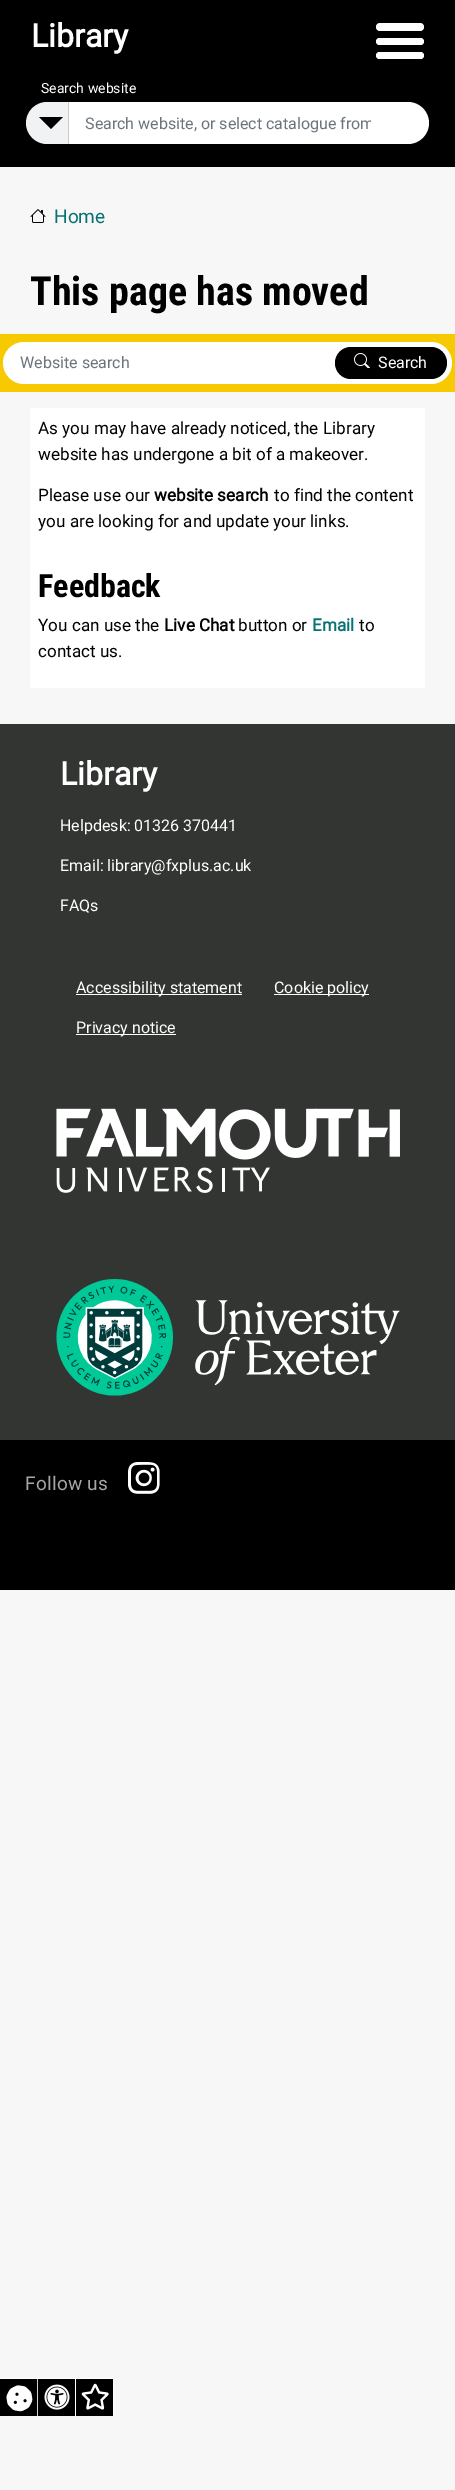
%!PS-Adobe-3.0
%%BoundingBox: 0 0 455 2490
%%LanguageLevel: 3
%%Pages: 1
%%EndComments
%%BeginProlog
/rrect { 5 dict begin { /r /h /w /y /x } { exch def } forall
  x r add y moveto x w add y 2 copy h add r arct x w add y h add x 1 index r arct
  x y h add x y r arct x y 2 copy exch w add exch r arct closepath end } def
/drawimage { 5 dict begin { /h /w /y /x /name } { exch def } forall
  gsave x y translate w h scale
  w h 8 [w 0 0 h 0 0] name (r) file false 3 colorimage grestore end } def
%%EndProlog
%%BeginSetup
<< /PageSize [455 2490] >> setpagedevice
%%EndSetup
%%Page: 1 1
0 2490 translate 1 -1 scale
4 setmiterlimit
0.969 setgray
0 0 455 2490 rectfill
0 setgray
0 0 455 167 rectfill
0.941 0.949 0.953 setrgbcolor
newpath 47 102 moveto 69 102 lineto 69 144 lineto 47 144 lineto 35.5 144 26 134.5 26 123 curveto 26 111.5 35.5 102 47 102 curveto closepath fill
0 setgray
newpath 39 117 moveto 63 117 lineto 51 129 lineto closepath fill
0.784 0.792 0.796 setrgbcolor
68 102 1 42 rectfill
1 setgray
newpath 69 102 moveto 408 102 lineto 419.5 102 429 111.5 429 123 curveto 429 134.5 419.5 144 408 144 curveto 69 144 lineto closepath fill
376 23 48 8 4 rrect fill
376 38 48 7 3.5 rrect fill
376 52 48 7 3.5 rrect fill
(images/1.raw) 30 209 16 14 drawimage
0.965 0.788 0 setrgbcolor
0 334 455 58 rectfill
1 setgray
3 342 449 42 21 rrect fill
0 setgray
335 347 112 32 16 rrect fill
(images/2.raw) 354 353 16 15 drawimage
1 setgray
30 408 395 280 rectfill
0.2 0.208 0.2 setrgbcolor
0 724 455 716 rectfill
1 setgray
76 994 166 1 rectfill
274 994 95 1 rectfill
76 1034 100 1 rectfill
(images/3.raw) 56 1108 344 85 drawimage
(images/4.raw) 56 1279 344 117 drawimage
0 setgray
0 1440 455 150 rectfill
(images/5.raw) 128 1462 32 32 drawimage
(images/6.raw) 0 2378 38 38 drawimage
(images/7.raw) 38 2378 38 38 drawimage
(images/8.raw) 76 2378 38 38 drawimage
/Roboto-Bold [32 0 0 -32 0 0] selectfont
1 setgray
31 47 moveto (Library) show
/Roboto-Regular [14 0 0 -14 0 0] selectfont
41 93 moveto (Search website) show
gsave
85 114 286 19 rectclip
/Roboto-Regular [16 0 0 -16 0 0] selectfont
0.424 0.459 0.49 setrgbcolor
85 129 moveto (Search website, or select catalogue from) show
grestore
/Roboto-Regular [19 0 0 -19 0 0] selectfont
0.027 0.447 0.447 setrgbcolor
54 223 moveto (Home) show
/RobotoCondensed-Bold [40 0 0 -40 0 0] selectfont
0 setgray
30 305 moveto (This page has moved) show
/Roboto-Regular [16 0 0 -16 0 0] selectfont
0.424 0.459 0.49 setrgbcolor
20 368 moveto (Website search) show
1 setgray
378 368 moveto (Search) show
/Roboto-Regular [17.1 0 0 -17.1 0 0] selectfont
0 setgray
38 434 moveto (As you may have already noticed, the Library) show
38 460 moveto (website has undergone a bit of a makeover.) show
38 501 moveto (Please use our) show
/Roboto-Bold [17.1 0 0 -17.1 0 0] selectfont
154 501 moveto (website search) show
/Roboto-Regular [17.1 0 0 -17.1 0 0] selectfont
274 501 moveto (to find the content) show
38 527 moveto (you are looking for and update your links.) show
/RobotoCondensed-Bold [32 0 0 -32 0 0] selectfont
38 597 moveto (Feedback) show
/Roboto-Regular [17.1 0 0 -17.1 0 0] selectfont
38 631 moveto (You can use the) show
/Roboto-Bold [17.1 0 0 -17.1 0 0] selectfont
164 631 moveto (Live Chat) show
/Roboto-Regular [17.1 0 0 -17.1 0 0] selectfont
238 631 moveto (button or) show
/Roboto-Bold [17.1 0 0 -17.1 0 0] selectfont
0.027 0.447 0.447 setrgbcolor
312 631 moveto (Email) show
/Roboto-Regular [17.1 0 0 -17.1 0 0] selectfont
0 setgray
359 631 moveto (to) show
38 657 moveto (contact us.) show
/Roboto-Bold [32 0 0 -32 0 0] selectfont
1 setgray
60 785 moveto (Library) show
/Roboto-Regular [16 0 0 -16 0 0] selectfont
60 831 moveto (Helpdesk: 01326 370441) show
60 871 moveto (Email: library@fxplus.ac.uk) show
60 911 moveto (FAQs) show
76 993 moveto (Accessibility statement) show
274 993 moveto (Cookie policy) show
76 1033 moveto (Privacy notice) show
/Roboto-Regular [19 0 0 -19 0 0] selectfont
0.651 setgray
25 1490 moveto 0.25 0 (Follow us) ashow
showpage
%%EOF
